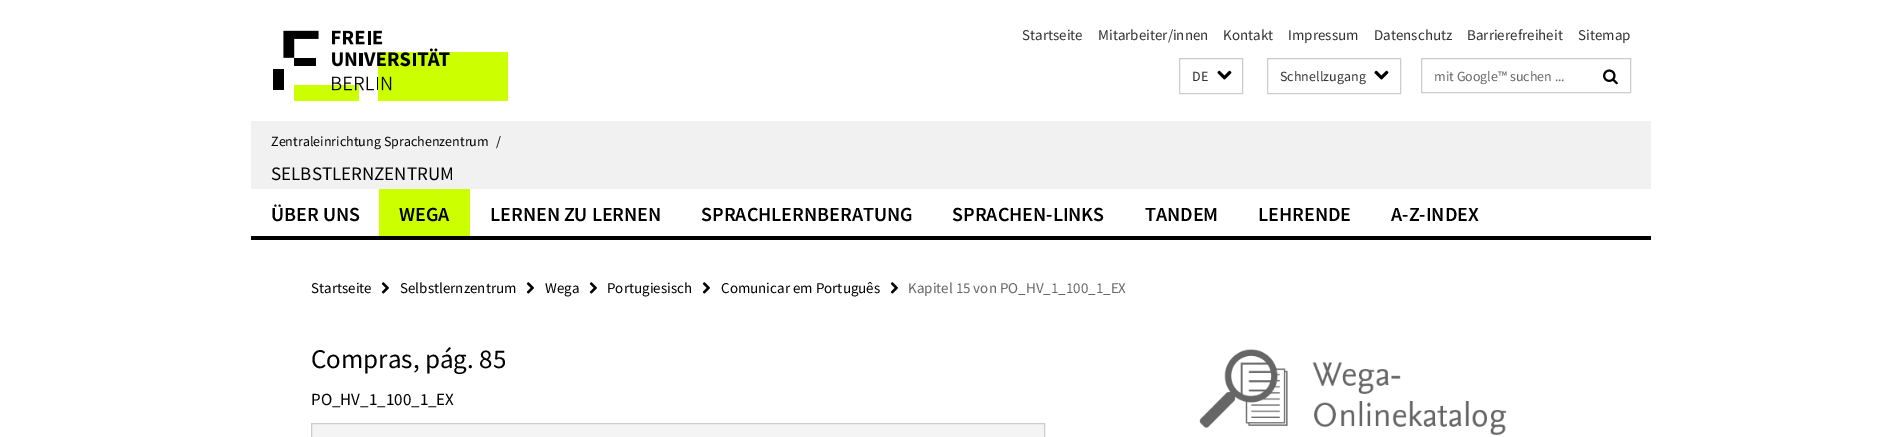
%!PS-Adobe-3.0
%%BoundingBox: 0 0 1901 437
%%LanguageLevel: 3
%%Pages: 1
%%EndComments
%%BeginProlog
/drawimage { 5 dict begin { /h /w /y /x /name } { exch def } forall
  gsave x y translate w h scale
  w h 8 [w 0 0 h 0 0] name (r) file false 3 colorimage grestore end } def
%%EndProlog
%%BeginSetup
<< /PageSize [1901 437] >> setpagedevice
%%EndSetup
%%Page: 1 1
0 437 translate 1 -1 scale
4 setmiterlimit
1 setgray
0 0 1901 437 rectfill
(images/1.raw) 273 30 235 71 drawimage
0.8 setgray
1179.5 58.5 63 35 rectstroke
(images/2.raw) 1217 70 15 10 drawimage
1267.5 58.5 133 35 rectstroke
(images/2.raw) 1374 70 15 10 drawimage
1421.5 58.5 209 34 rectstroke
(images/3.raw) 1603 69 15 16 drawimage
0.945 setgray
251 121 1400 68 rectfill
0 setgray
251 236 1400 4 rectfill
0.8 1 0 setrgbcolor
379 189 91 47 rectfill
(images/4.raw) 381 282 8 12 drawimage
(images/4.raw) 526 282 8 12 drawimage
(images/4.raw) 589 282 8 12 drawimage
(images/4.raw) 702 282 8 12 drawimage
(images/4.raw) 890 282 8 12 drawimage
0.957 setgray
newpath 311.5 423.5 moveto 1044.5 423.5 lineto 1044.5 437.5 lineto 311.5 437.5 lineto closepath gsave fill grestore
0.8 setgray
stroke
(images/5.raw) 1199 349 308 86 drawimage
/SourceSansPro-Regular [15 0 0 -15 0 0] selectfont
0.2 setgray
1022 40 moveto (Startseite) show
1098 40 moveto (Mitarbeiter/innen) show
1223 40 moveto (Kontakt) show
1288 40 moveto (Impressum) show
1374 40 moveto (Datenschutz) show
1467 40 moveto (Barrierefreiheit) show
1578 40 moveto (Sitemap) show
/SourceSansPro-Regular [14 0 0 -14 0 0] selectfont
1192 81 moveto (DE) show
1280 81 moveto (Schnellzugang) show
0.4 setgray
1434 81 moveto (mit Google™ suchen ...) show
0 setgray
271 146 moveto (Zentraleinrichtung Sprachenzentrum) show
496 146 moveto (/) show
/SourceSansPro-Regular [19 0 0 -19 0 0] selectfont
271 180 moveto (SELBSTLERNZENTRUM) show
/SourceSansPro-SemiBold [20 0 0 -20 0 0] selectfont
271 221 moveto (ÜBER UNS) show
399 221 moveto (WEGA) show
490 221 moveto (LERNEN ZU LERNEN) show
701 221 moveto (SPRACHLERNBERATUNG) show
952 221 moveto (SPRACHEN-LINKS) show
1145 221 moveto (TANDEM) show
1258 221 moveto (LEHRENDE) show
1391 221 moveto (A-Z-INDEX) show
/SourceSansPro-Regular [15 0 0 -15 0 0] selectfont
311 293 moveto (Startseite) show
400 293 moveto (Selbstlernzentrum) show
545 293 moveto (Wega) show
607 293 moveto (Portugiesisch) show
721 293 moveto (Comunicar em Português) show
0.4 setgray
908 293 moveto (Kapitel 15 von PO_HV_1_100_1_EX) show
/SourceSansPro-Regular [27 0 0 -27 0 0] selectfont
0 setgray
311 368 moveto (Compras, pág. 85) show
/SourceSansPro-Regular [17 0 0 -17 0 0] selectfont
311 405 moveto (PO_HV_1_100_1_EX) show
showpage
%%EOF
